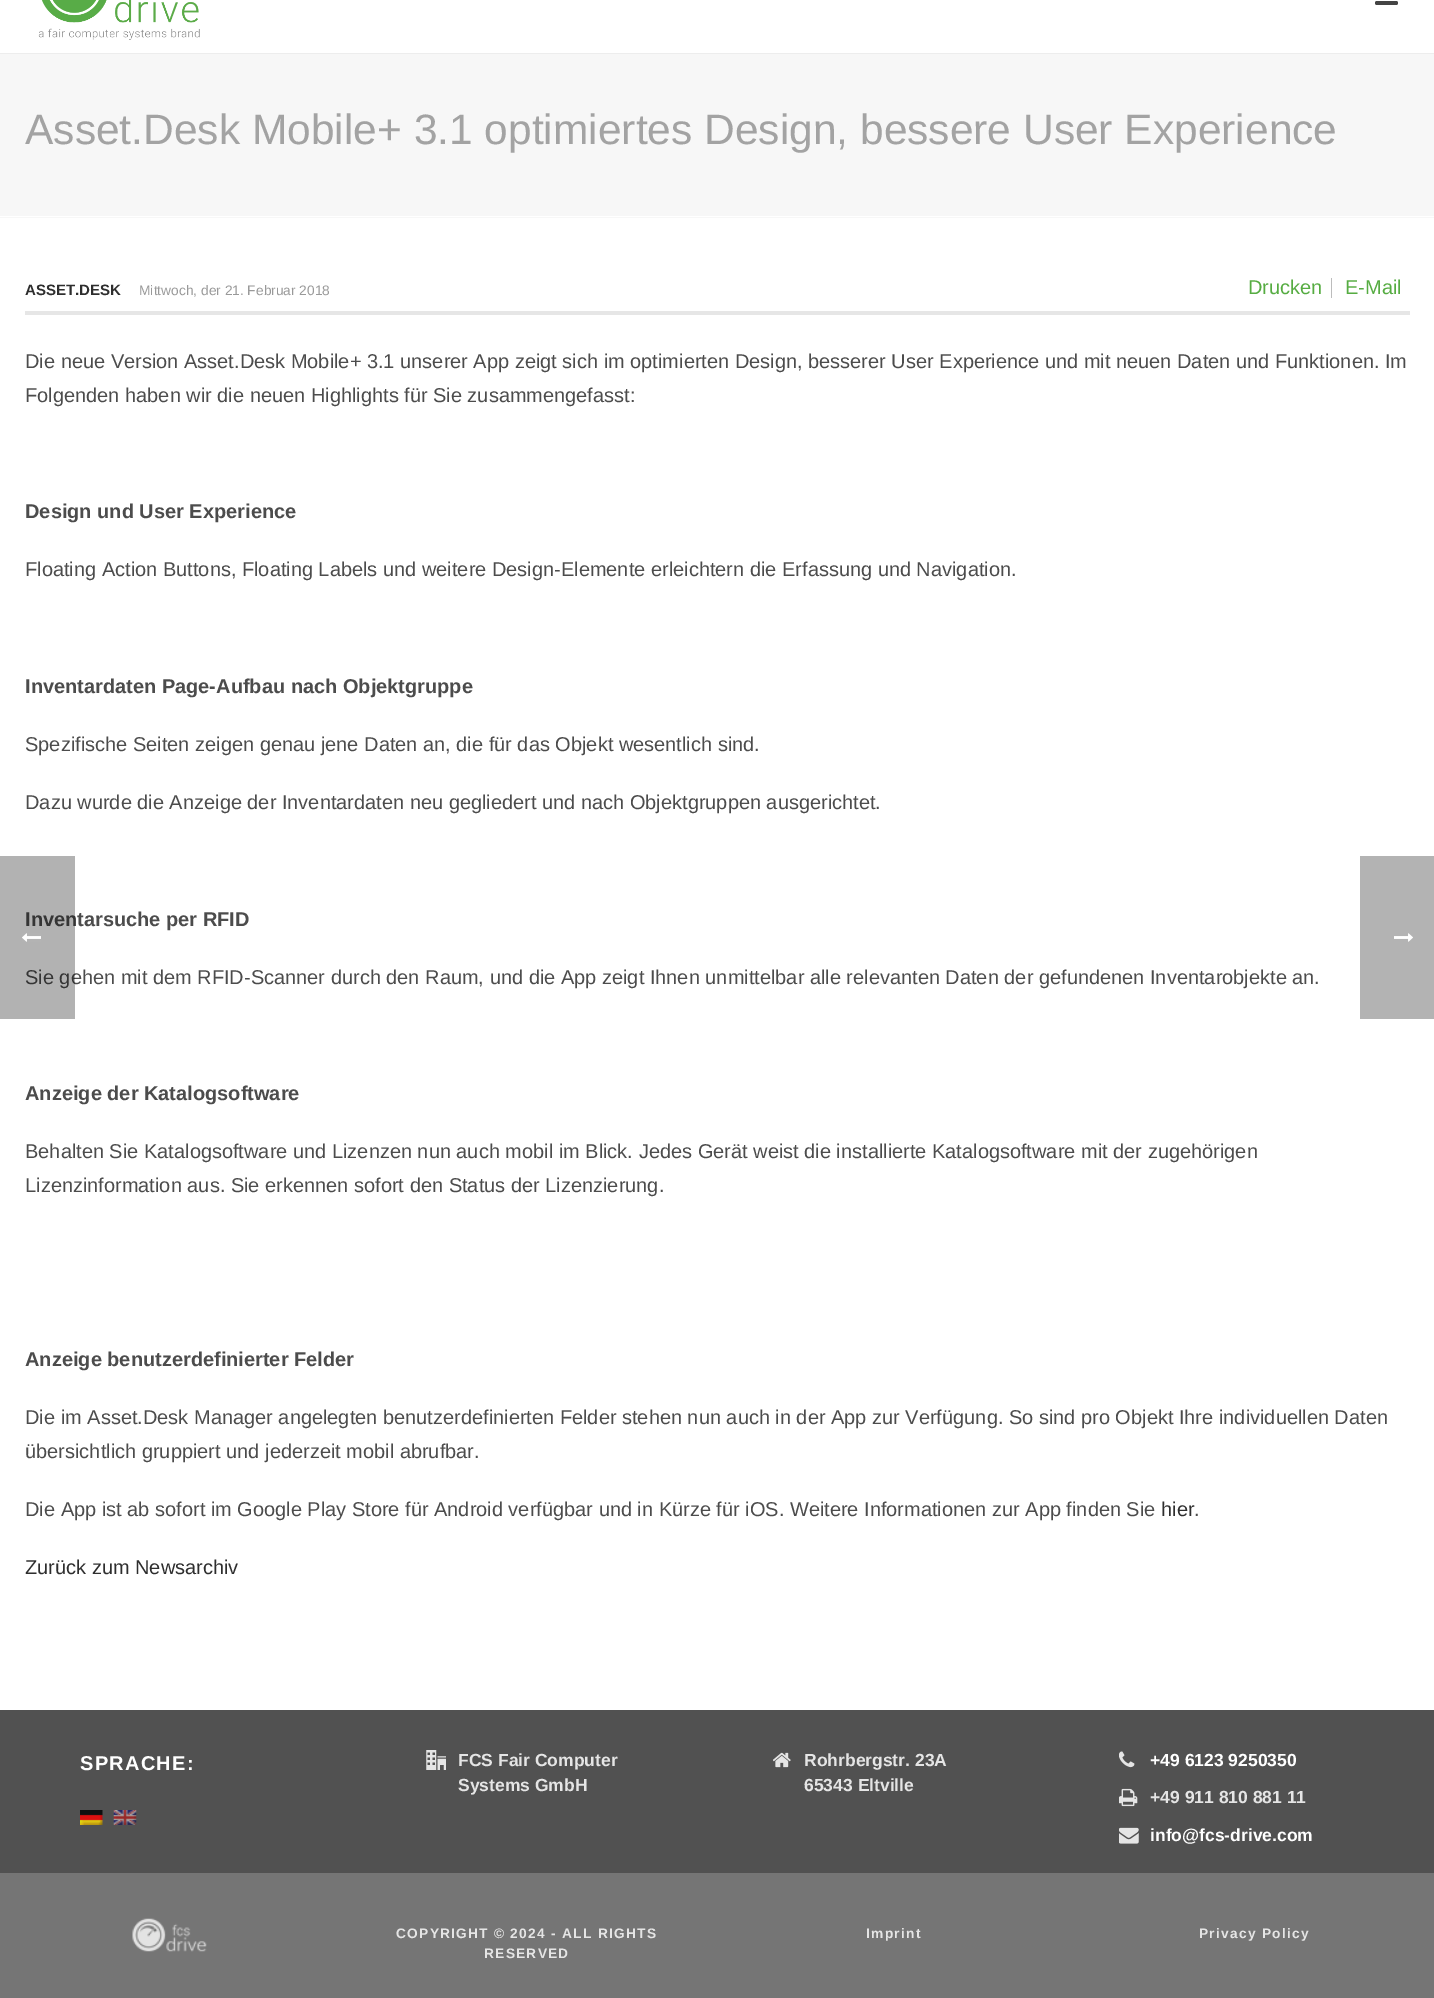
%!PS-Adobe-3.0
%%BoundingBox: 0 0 1434 1998
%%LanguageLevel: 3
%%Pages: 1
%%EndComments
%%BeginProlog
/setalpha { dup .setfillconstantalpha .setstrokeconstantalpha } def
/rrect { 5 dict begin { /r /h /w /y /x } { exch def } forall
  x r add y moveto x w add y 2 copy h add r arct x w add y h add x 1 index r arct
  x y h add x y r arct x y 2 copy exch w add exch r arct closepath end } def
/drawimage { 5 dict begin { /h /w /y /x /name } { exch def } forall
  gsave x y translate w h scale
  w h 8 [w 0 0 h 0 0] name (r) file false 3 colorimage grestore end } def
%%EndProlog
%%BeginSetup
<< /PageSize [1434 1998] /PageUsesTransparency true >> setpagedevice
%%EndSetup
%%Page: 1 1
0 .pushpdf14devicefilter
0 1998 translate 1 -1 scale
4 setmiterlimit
1 setgray
0 0 1434 1998 rectfill
0.969 setgray
0 54 1434 164 rectfill
1 setgray
0 216 1434 1 rectfill
0.929 setgray
0 53 1434 1 rectfill
(images/1.raw) 38 0 162 40 drawimage
0.267 setgray
1375 1 23 4 2 rrect fill
0.902 setgray
25 311 1385 4 rectfill
0.737 setgray
1331 278 1 20 rectfill
0.318 setgray
0 1710 1434 163 rectfill
(images/2.raw) 80 1810 23 15 drawimage
(images/3.raw) 113 1810 24 15 drawimage
(images/4.raw) 426 1750 20 20 drawimage
(images/5.raw) 773 1752 18 16 drawimage
(images/6.raw) 1119 1751 16 17 drawimage
(images/7.raw) 1119 1788 19 19 drawimage
(images/8.raw) 1119 1827 20 17 drawimage
0.459 setgray
0 1873 1434 125 rectfill
(images/9.raw) 132 1918 75 34 drawimage
0.702 setgray
1360 856 74 163 rectfill
(images/11.raw) 1394 933 19 9 drawimage
/LiberationSans-Regular [42.5 0 0 -42.5 0 0] selectfont
0.639 setgray
25 144 moveto (Asset.Desk Mobile+ 3.1 optimiertes Design, bessere User Experience) show
/LiberationSans-Bold [15 0 0 -15 0 0] selectfont
0.18 setgray
25 295 moveto (ASSET.DESK) show
/LiberationSans-Regular [13.75 0 0 -13.75 0 0] selectfont
0.6 setgray
139 295 moveto (Mittwoch, der 21. Februar 2018) show
/LiberationSans-Regular [20 0 0 -20 0 0] selectfont
0.337 0.675 0.259 setrgbcolor
1248 294 moveto (Drucken) show
1345 294 moveto (E-Mail) show
0.298 setgray
25 368 moveto (Die neue Version Asset.Desk Mobile+ 3.1 unserer App zeigt sich im optimierten Design, besserer User Experience und mit neuen Daten und Funktionen. Im) show
25 402 moveto (Folgenden haben wir die neuen Highlights für Sie zusammengefasst:) show
/LiberationSans-Bold [20 0 0 -20 0 0] selectfont
25 518 moveto (Design und User Experience) show
/LiberationSans-Regular [20 0 0 -20 0 0] selectfont
25 576 moveto (Floating Action Buttons, Floating Labels und weitere Design-Elemente erleichtern die Erfassung und Navigation.) show
/LiberationSans-Bold [20 0 0 -20 0 0] selectfont
25 693 moveto (Inventardaten Page-Aufbau nach Objektgruppe) show
/LiberationSans-Regular [20 0 0 -20 0 0] selectfont
25 751 moveto (Spezifische Seiten zeigen genau jene Daten an, die für das Objekt wesentlich sind.) show
25 809 moveto (Dazu wurde die Anzeige der Inventardaten neu gegliedert und nach Objektgruppen ausgerichtet.) show
/LiberationSans-Bold [20 0 0 -20 0 0] selectfont
25 926 moveto (Inventarsuche per RFID) show
/LiberationSans-Regular [20 0 0 -20 0 0] selectfont
25 984 moveto (Sie gehen mit dem RFID-Scanner durch den Raum, und die App zeigt Ihnen unmittelbar alle relevanten Daten der gefundenen Inventarobjekte an.) show
/LiberationSans-Bold [20 0 0 -20 0 0] selectfont
25 1100 moveto (Anzeige der Katalogsoftware) show
/LiberationSans-Regular [20 0 0 -20 0 0] selectfont
25 1158 moveto (Behalten Sie Katalogsoftware und Lizenzen nun auch mobil im Blick. Jedes Gerät weist die installierte Katalogsoftware mit der zugehörigen) show
25 1192 moveto (Lizenzinformation aus. Sie erkennen sofort den Status der Lizenzierung.) show
/LiberationSans-Bold [20 0 0 -20 0 0] selectfont
25 1366 moveto (Anzeige benutzerdefinierter Felder) show
/LiberationSans-Regular [20 0 0 -20 0 0] selectfont
25 1424 moveto (Die im Asset.Desk Manager angelegten benutzerdefinierten Felder stehen nun auch in der App zur Verfügung. So sind pro Objekt Ihre individuellen Daten) show
25 1458 moveto (übersichtlich gruppiert und jederzeit mobil abrufbar.) show
25 1516 moveto (Die App ist ab sofort im Google Play Store für Android verfügbar und in Kürze für iOS. Weitere Informationen zur App finden Sie) show
0.18 setgray
1161 1516 moveto (hier) show
0.298 setgray
1194 1516 moveto (.) show
0.18 setgray
25 1574 moveto (Zurück zum Newsarchiv) show
/LiberationSans-Bold [20 0 0 -20 0 0] selectfont
1 setgray
80 1770 moveto 1.25 0 (SPRACHE:) ashow
/LiberationSans-Bold [17.5 0 0 -17.5 0 0] selectfont
0.898 setgray
458 1766 moveto (FCS Fair Computer) show
458 1791 moveto (Systems GmbH) show
804 1766 moveto (Rohrbergstr. 23A) show
804 1791 moveto (65343 Eltville) show
1 setgray
1150 1766 moveto (+49 6123 9250350) show
0.898 setgray
1150 1803 moveto (+49 911 810 881 11) show
1 setgray
1150 1841 moveto (info@fcs-drive.com) show
/LiberationSans-Bold [13.75 0 0 -13.75 0 0] selectfont
0.898 setgray
396 1938 moveto 1.25 0 (COPYRIGHT © 2024 - ALL RIGHTS) ashow
484 1958 moveto 1.25 0 (RESERVED) ashow
866 1938 moveto 1.25 0 (Imprint) ashow
1199 1938 moveto 1.25 0 (Privacy Policy) ashow
0.3 setalpha
0 setgray
0 856 75 163 rectfill
1 setalpha
(images/10.raw) 22 933 19 9 drawimage
.poppdf14devicefilter showpage
%%EOF
